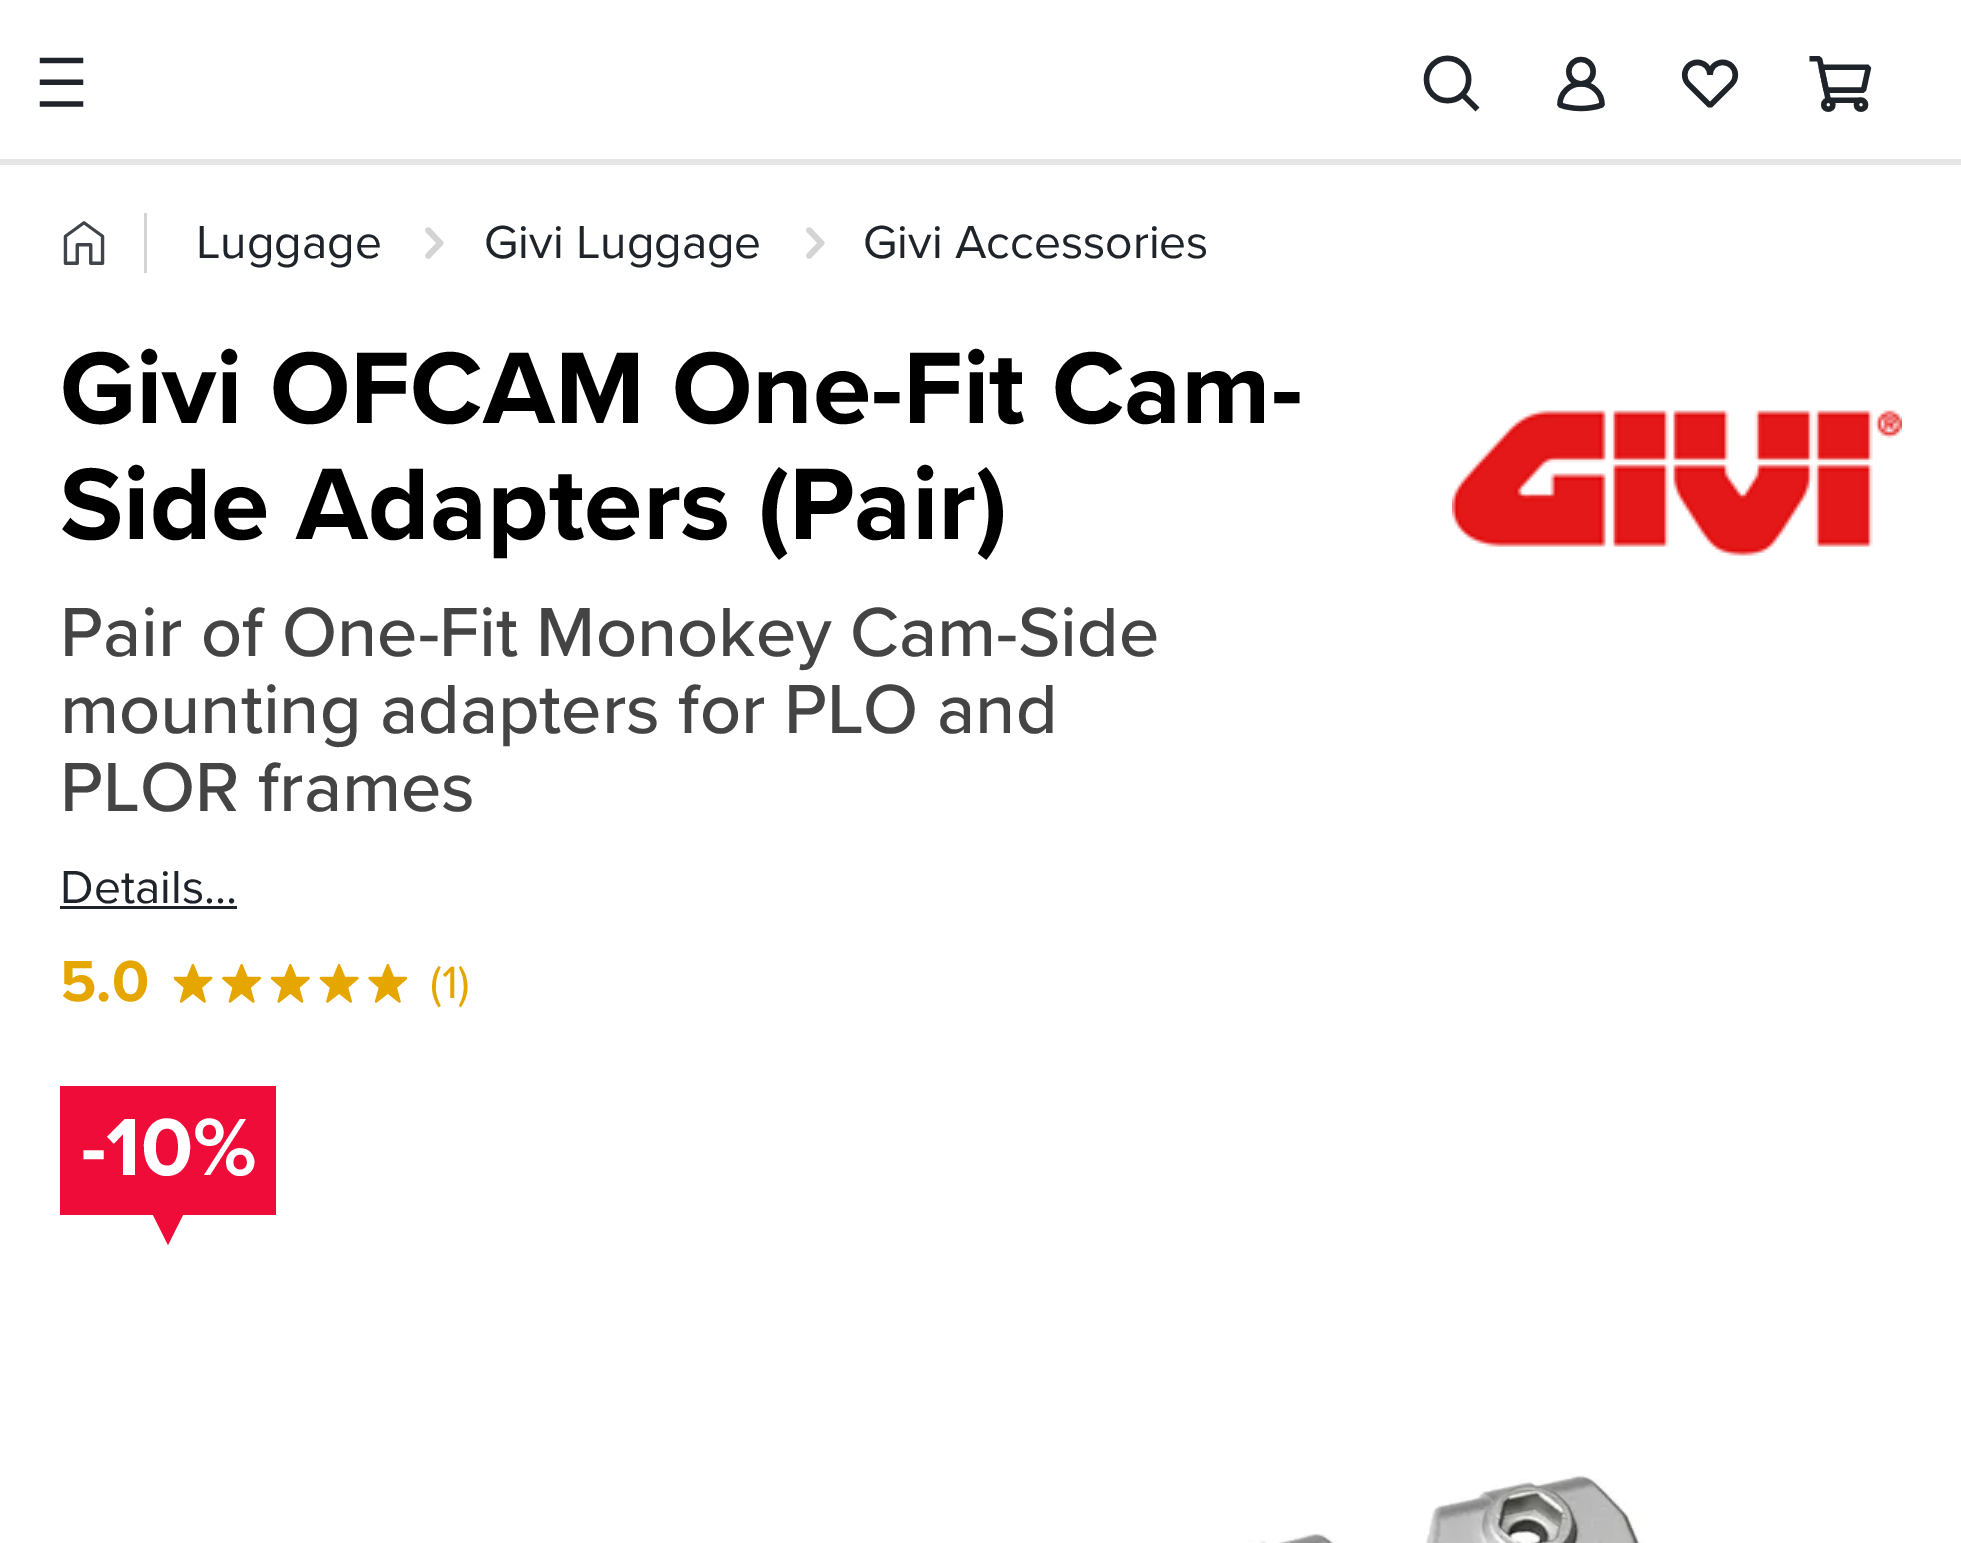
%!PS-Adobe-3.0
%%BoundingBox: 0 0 1961 1543
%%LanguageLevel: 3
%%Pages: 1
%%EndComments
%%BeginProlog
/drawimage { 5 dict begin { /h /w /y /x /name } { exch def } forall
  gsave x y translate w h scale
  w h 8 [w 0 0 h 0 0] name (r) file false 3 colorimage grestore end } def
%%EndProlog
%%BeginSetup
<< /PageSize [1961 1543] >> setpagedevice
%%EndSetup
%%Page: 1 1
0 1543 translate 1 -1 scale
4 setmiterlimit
1 setgray
0 0 1961 1543 rectfill
0.902 setgray
0 159 1961 6 rectfill
(images/1.raw) 1423 55 57 57 drawimage
(images/2.raw) 1557 56 48 56 drawimage
(images/3.raw) 1681 59 58 49 drawimage
(images/4.raw) 1809 56 63 56 drawimage
(images/5.raw) 39 57 45 50 drawimage
(images/6.raw) 63 221 42 44 drawimage
0.831 setgray
144 213 3 60 rectfill
(images/7.raw) 425 227 19 32 drawimage
(images/7.raw) 806 227 19 32 drawimage
(images/8.raw) 1452 410 450 146 drawimage
0.118 0.141 0.161 setrgbcolor
60 906 177 3 rectfill
(images/9.raw) 173 964 235 39 drawimage
0.937 0.047 0.22 setrgbcolor
60 1086 216 129 rectfill
newpath 153 1215 moveto 183 1215 lineto 168 1245 lineto closepath fill
(images/10.raw) 1202 1465 451 78 drawimage
/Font-Regular [48 0 0 -48 0 0] selectfont
0.118 0.141 0.161 setrgbcolor
196 258 moveto (Luggage) show
484 258 moveto (Givi Luggage) show
863 258 moveto (Givi Accessories) show
/Font-Bold [105.25 0 0 -105.25 0 0] selectfont
0 setgray
60 423 moveto (Givi OFCAM One-Fit Cam-) show
60 539 moveto (Side Adapters \(Pair\)) show
/ProximaNova-Medium [72 0 0 -72 0 0] selectfont
0.267 setgray
60 656 moveto (Pair of One-Fit Monokey Cam-Side) show
60 733 moveto (mounting adapters for PLO and) show
60 811 moveto (PLOR frames) show
/Font-Regular [48 0 0 -48 0 0] selectfont
0.118 0.141 0.161 setrgbcolor
60 903 moveto (Details…) show
/Font-Bold [60 0 0 -60 0 0] selectfont
0.902 0.651 0 setrgbcolor
60 1001 moveto (5.0) show
/Font-Regular [47 0 0 -47 0 0] selectfont
430 998 moveto (\(1\)) show
/Font-Bold [84 0 0 -84 0 0] selectfont
1 setgray
81 1175 moveto (-10%) show
showpage
%%EOF
